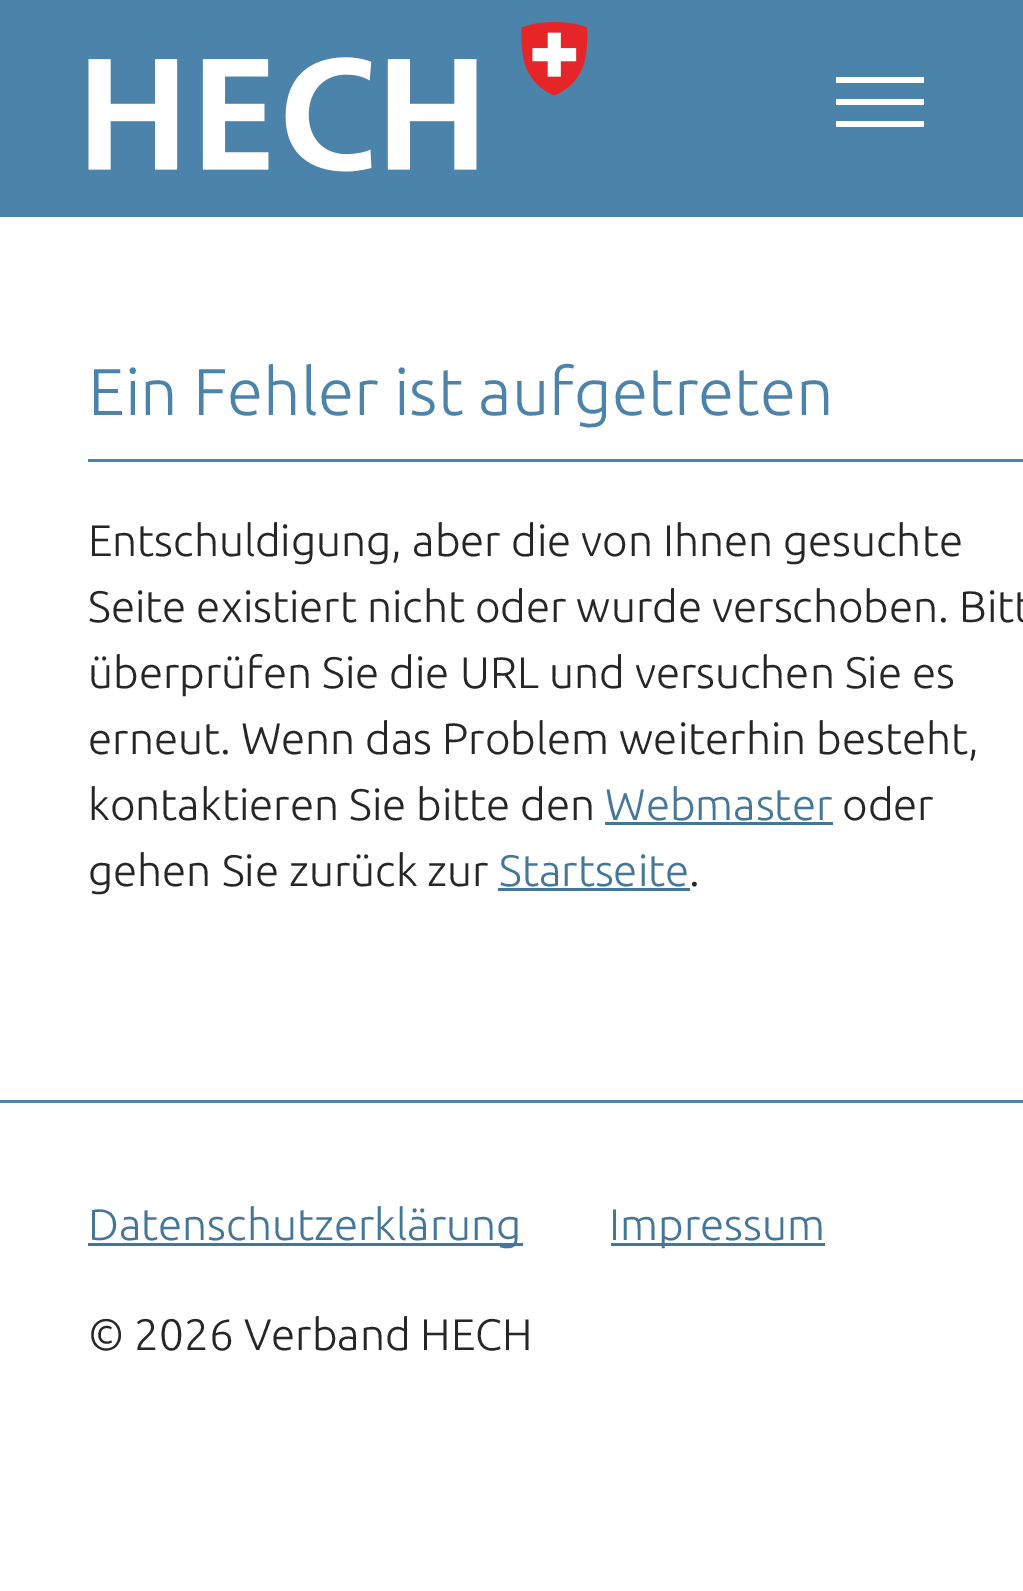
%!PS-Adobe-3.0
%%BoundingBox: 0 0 1023 1591
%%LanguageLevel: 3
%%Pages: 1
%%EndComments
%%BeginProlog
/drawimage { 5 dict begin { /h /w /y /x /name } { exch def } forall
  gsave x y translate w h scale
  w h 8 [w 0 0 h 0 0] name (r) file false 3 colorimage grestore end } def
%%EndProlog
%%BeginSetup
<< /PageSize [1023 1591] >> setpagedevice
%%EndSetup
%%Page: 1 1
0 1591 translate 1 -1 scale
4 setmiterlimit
1 setgray
0 0 1023 1591 rectfill
0.294 0.514 0.671 setrgbcolor
0 0 1023 217 rectfill
(images/1.raw) 88 22 500 150 drawimage
1 setgray
836 77 88 6 rectfill
836 99 88 6 rectfill
836 121 88 6 rectfill
0.294 0.514 0.671 setrgbcolor
88 459 935 3 rectfill
0.267 0.463 0.604 setrgbcolor
605 822 228 3 rectfill
498 888 192 3 rectfill
0.294 0.514 0.671 setrgbcolor
0 1100 1023 3 rectfill
0.267 0.463 0.604 setrgbcolor
88 1243 435 3 rectfill
611 1243 214 3 rectfill
/Ubuntu-Light [66 0 0 -66 0 0] selectfont
0.294 0.514 0.671 setrgbcolor
88 415 moveto (Ein Fehler ist aufgetreten) show
/Ubuntu-Light [44 0 0 -44 0 0] selectfont
0.149 setgray
88 556 moveto (Entschuldigung, aber die von Ihnen gesuchte) show
88 622 moveto (Seite existiert nicht oder wurde verschoben. Bitt) show
88 688 moveto (überprüfen Sie die URL und versuchen Sie es) show
88 754 moveto (erneut. Wenn das Problem weiterhin besteht,) show
88 820 moveto (kontaktieren Sie bitte den) show
0.267 0.463 0.604 setrgbcolor
605 820 moveto (Webmaster) show
0.149 setgray
842 820 moveto (oder) show
88 886 moveto (gehen Sie zurück zur) show
0.267 0.463 0.604 setrgbcolor
499 886 moveto (Startseite) show
0.149 setgray
689 886 moveto (.) show
0.267 0.463 0.604 setrgbcolor
88 1240 moveto (Datenschutzerklärung) show
609 1240 moveto (Impressum) show
0.149 setgray
88 1350 moveto (© 2026 Verband HECH) show
showpage
%%EOF
